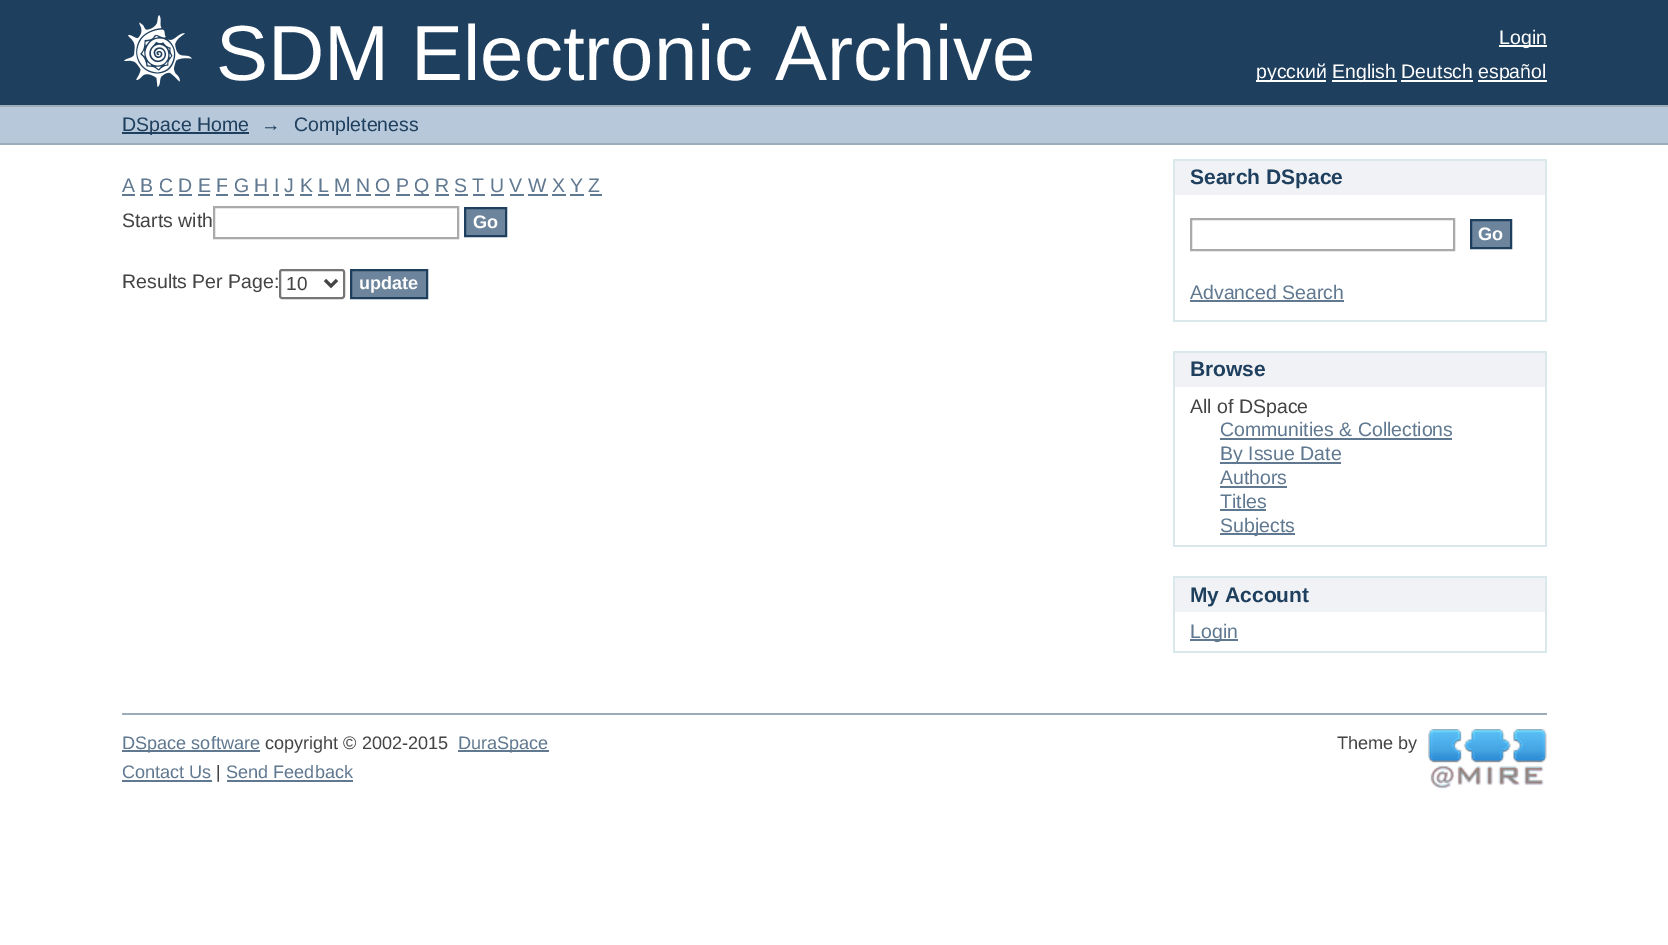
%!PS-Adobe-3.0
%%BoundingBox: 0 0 1668 945
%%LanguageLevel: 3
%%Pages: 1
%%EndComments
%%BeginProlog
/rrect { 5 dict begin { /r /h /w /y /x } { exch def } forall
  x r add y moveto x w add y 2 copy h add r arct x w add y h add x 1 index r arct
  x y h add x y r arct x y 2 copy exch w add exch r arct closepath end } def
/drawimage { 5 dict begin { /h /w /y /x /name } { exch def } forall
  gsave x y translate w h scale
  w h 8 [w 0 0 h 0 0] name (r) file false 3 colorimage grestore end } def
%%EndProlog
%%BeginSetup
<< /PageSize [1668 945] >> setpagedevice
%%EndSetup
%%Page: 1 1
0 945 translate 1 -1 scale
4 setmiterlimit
1 setgray
0 0 1668 945 rectfill
0.122 0.247 0.369 setrgbcolor
0 0 1668 105 rectfill
(images/1.raw) 124 15 68 72 drawimage
1 setgray
1499 45 48 2 rectfill
1256 80 70 2 rectfill
1332 80 65 2 rectfill
1478 80 69 2 rectfill
1401 80 72 2 rectfill
0.714 0.784 0.851 setrgbcolor
0 107 1668 36 rectfill
0.612 0.675 0.729 setrgbcolor
0 105 1668 2 rectfill
0 143 1668 2 rectfill
0.122 0.247 0.369 setrgbcolor
122 132 127 2 rectfill
0.376 0.471 0.565 setrgbcolor
122 194 13 2 rectfill
414 194 15 2 rectfill
140 194 13 2 rectfill
159 194 14 2 rectfill
179 194 13 2 rectfill
198 194 12 2 rectfill
216 194 12 2 rectfill
234 194 15 2 rectfill
254 194 15 2 rectfill
273 194 6 2 rectfill
285 194 9 2 rectfill
300 194 12 2 rectfill
318 194 11 2 rectfill
335 194 16 2 rectfill
356 194 15 2 rectfill
375 194 15 2 rectfill
396 194 14 2 rectfill
435 194 14 2 rectfill
455 194 13 2 rectfill
473 194 12 2 rectfill
491 194 13 2 rectfill
510 194 14 2 rectfill
528 194 20 2 rectfill
552 194 14 2 rectfill
570 194 14 2 rectfill
590 194 12 2 rectfill
0.667 setgray
2 setlinewidth
214 207 244 31 rectstroke
0.427 0.522 0.612 setrgbcolor
newpath 465 208 moveto 506 208 lineto 506 236 lineto 465 236 lineto closepath gsave fill grestore
0.122 0.247 0.369 setrgbcolor
stroke
0.463 setgray
280 270 64 28 2 rrect stroke
0.267 setgray
3 setlinewidth
newpath 325 280 moveto 331 286 lineto 337 280 lineto stroke
0.427 0.522 0.612 setrgbcolor
newpath 351 270 moveto 427 270 lineto 427 298 lineto 351 298 lineto closepath gsave fill grestore
0.122 0.247 0.369 setrgbcolor
2 setlinewidth
stroke
0.941 0.949 0.961 setrgbcolor
1175 161 370 34 rectfill
0.847 0.91 0.922 setrgbcolor
1173 159 374 2 rectfill
1545 159 2 162 rectfill
1173 159 2 36 rectfill
1173 320 374 2 rectfill
1173 195 2 126 rectfill
0.667 setgray
1191 219 263 31 rectstroke
0.427 0.522 0.612 setrgbcolor
newpath 1471 220 moveto 1511 220 lineto 1511 248 lineto 1471 248 lineto closepath gsave fill grestore
0.122 0.247 0.369 setrgbcolor
stroke
0.376 0.471 0.565 setrgbcolor
1190 300 154 2 rectfill
0.941 0.949 0.961 setrgbcolor
1175 353 370 34 rectfill
0.847 0.91 0.922 setrgbcolor
1173 351 374 2 rectfill
1545 351 2 195 rectfill
1173 351 2 36 rectfill
1173 545 374 2 rectfill
1173 387 2 159 rectfill
0.376 0.471 0.565 setrgbcolor
1220 438 232 2 rectfill
1220 462 121 2 rectfill
1220 486 67 2 rectfill
1220 509 46 2 rectfill
1220 533 75 2 rectfill
0.941 0.949 0.961 setrgbcolor
1175 578 370 34 rectfill
0.847 0.91 0.922 setrgbcolor
1173 576 374 2 rectfill
1545 576 2 77 rectfill
1173 576 2 36 rectfill
1173 651 374 2 rectfill
1173 612 2 41 rectfill
0.376 0.471 0.565 setrgbcolor
1190 639 48 2 rectfill
0.612 0.675 0.729 setrgbcolor
122 713 1425 2 rectfill
0.376 0.471 0.565 setrgbcolor
122 750 138 2 rectfill
458 750 91 2 rectfill
(images/2.raw) 1428 729 119 60 drawimage
122 780 90 2 rectfill
227 780 126 2 rectfill
/LiberationSans-Regular [78 0 0 -78 0 0] selectfont
1 setgray
216 80 moveto (SDM Electronic Archive) show
/LiberationSans-Regular [19.5 0 0 -19.5 0 0] selectfont
1499 44 moveto (Login) show
1256 78 moveto (русский) show
1332 78 moveto (English Deutsch) show
1478 78 moveto (español) show
0.122 0.247 0.369 setrgbcolor
122 131 moveto (DSpace Home) show
261 131 moveto (→) show
294 131 moveto (Completeness) show
0.376 0.471 0.565 setrgbcolor
122 192 moveto (A B C D E F G H I J K L M N O P) show
414 192 moveto (Q R S T U V W X Y Z) show
0.267 setgray
122 227 moveto (Starts with) show
/LiberationSans-Bold [18.1 0 0 -18.1 0 0] selectfont
1 setgray
473 228 moveto (Go) show
/LiberationSans-Regular [19.5 0 0 -19.5 0 0] selectfont
0.267 setgray
122 288 moveto (Results Per Page:) show
/LiberationSans-Regular [19 0 0 -19 0 0] selectfont
286 290 moveto (10) show
/LiberationSans-Bold [18.1 0 0 -18.1 0 0] selectfont
1 setgray
359 289 moveto (update) show
/LiberationSans-Bold [21 0 0 -21 0 0] selectfont
0.122 0.247 0.369 setrgbcolor
1190 184 moveto (Search DSpace) show
/LiberationSans-Bold [18.1 0 0 -18.1 0 0] selectfont
1 setgray
1478 240 moveto (Go) show
/LiberationSans-Regular [19.5 0 0 -19.5 0 0] selectfont
0.376 0.471 0.565 setrgbcolor
1190 299 moveto (Advanced Search) show
/LiberationSans-Bold [21 0 0 -21 0 0] selectfont
0.122 0.247 0.369 setrgbcolor
1190 376 moveto (Browse) show
/LiberationSans-Regular [19.5 0 0 -19.5 0 0] selectfont
0.267 setgray
1190 413 moveto (All of DSpace) show
0.376 0.471 0.565 setrgbcolor
1220 436 moveto (Communities & Collections) show
1220 460 moveto (By Issue Date) show
1220 484 moveto (Authors) show
1220 508 moveto (Titles) show
1220 532 moveto (Subjects) show
/LiberationSans-Bold [21 0 0 -21 0 0] selectfont
0.122 0.247 0.369 setrgbcolor
1190 602 moveto (My Account) show
/LiberationSans-Regular [19.5 0 0 -19.5 0 0] selectfont
0.376 0.471 0.565 setrgbcolor
1190 638 moveto (Login) show
/LiberationSans-Regular [18.1 0 0 -18.1 0 0] selectfont
122 749 moveto (DSpace software) show
0.267 setgray
265 749 moveto (copyright © 2002-2015) show
0.376 0.471 0.565 setrgbcolor
458 749 moveto (DuraSpace) show
0.267 setgray
1337 749 moveto (Theme by) show
0.376 0.471 0.565 setrgbcolor
122 778 moveto (Contact Us) show
0.267 setgray
216 778 moveto (|) show
0.376 0.471 0.565 setrgbcolor
226 778 moveto (Send Feedback) show
showpage
%%EOF
